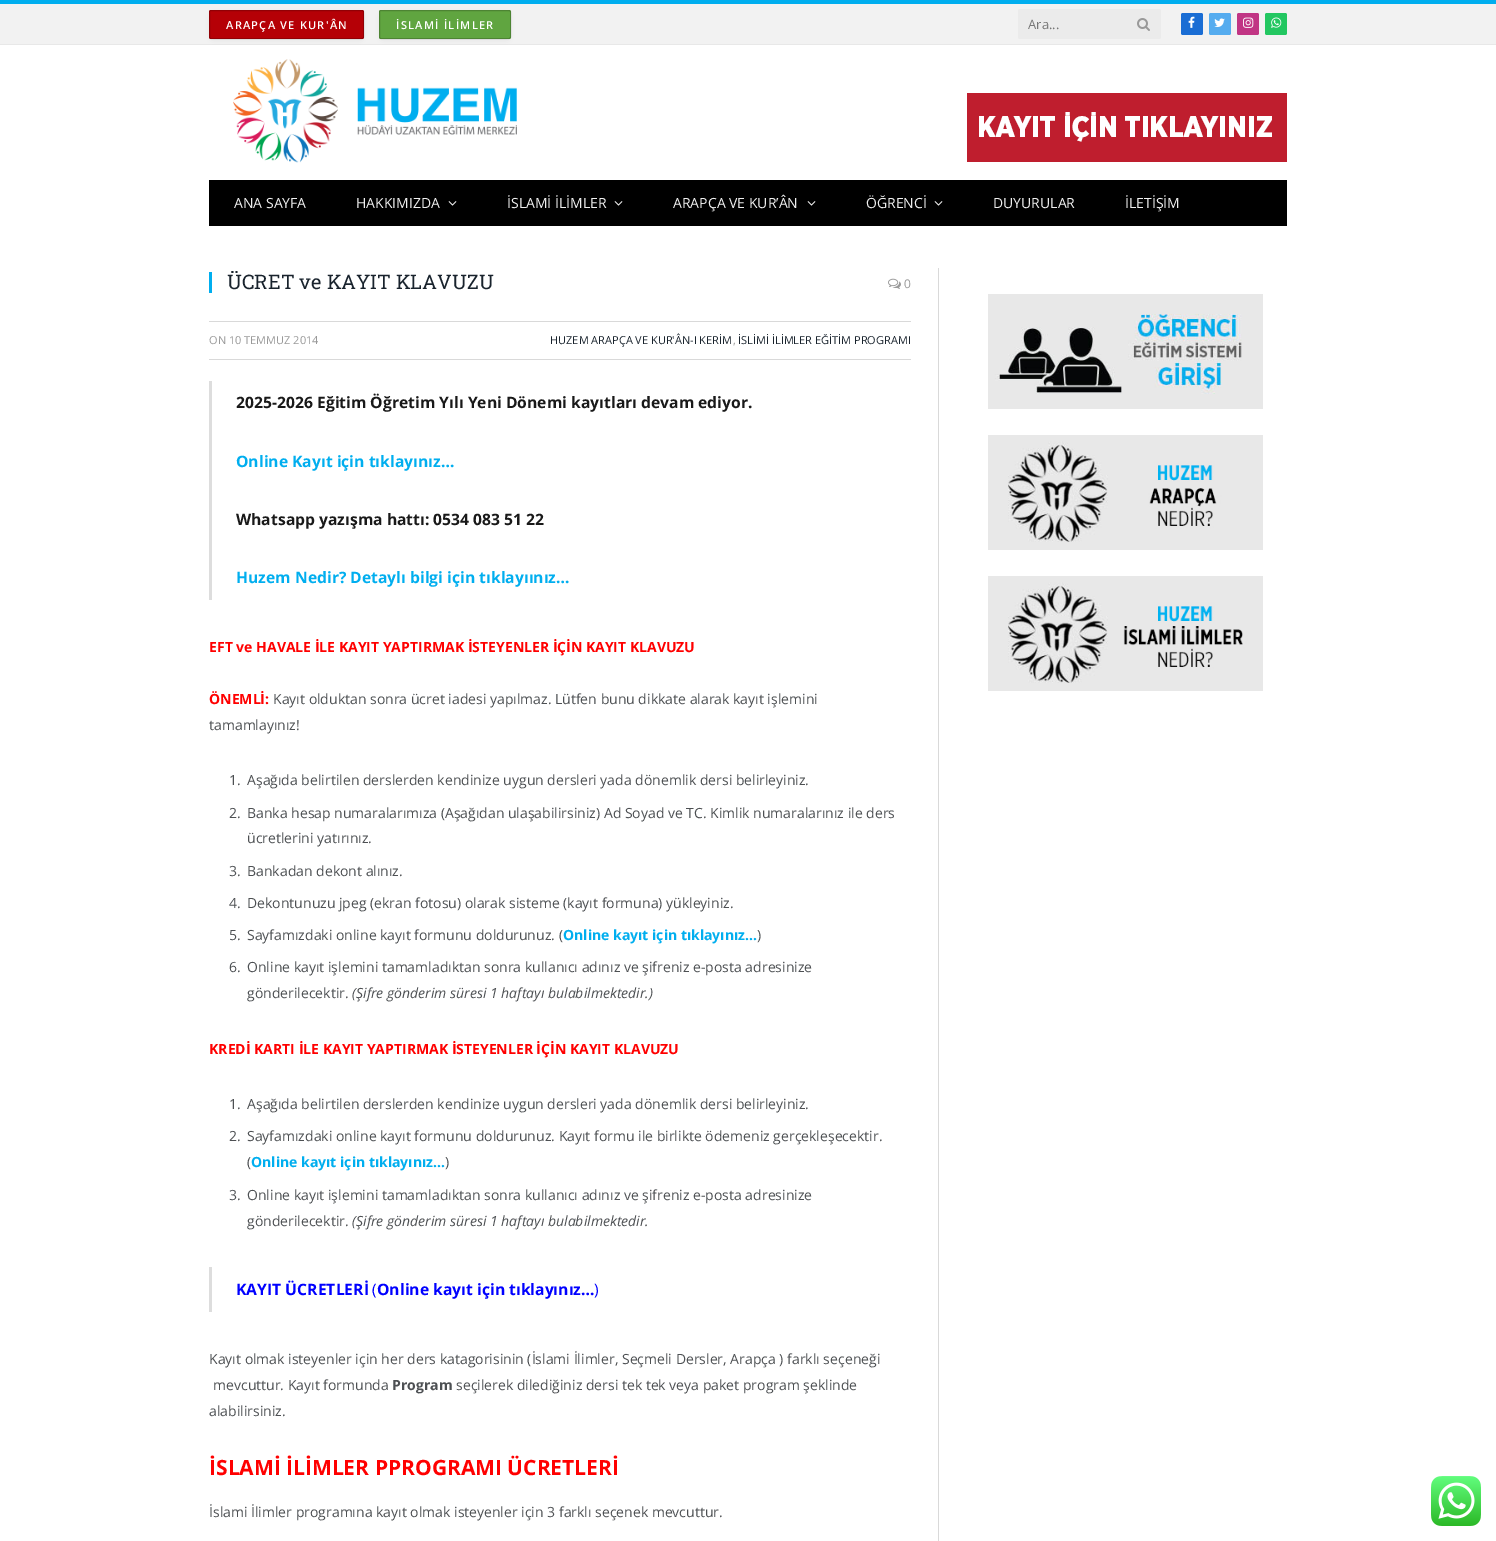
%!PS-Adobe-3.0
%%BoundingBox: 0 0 1496 1541
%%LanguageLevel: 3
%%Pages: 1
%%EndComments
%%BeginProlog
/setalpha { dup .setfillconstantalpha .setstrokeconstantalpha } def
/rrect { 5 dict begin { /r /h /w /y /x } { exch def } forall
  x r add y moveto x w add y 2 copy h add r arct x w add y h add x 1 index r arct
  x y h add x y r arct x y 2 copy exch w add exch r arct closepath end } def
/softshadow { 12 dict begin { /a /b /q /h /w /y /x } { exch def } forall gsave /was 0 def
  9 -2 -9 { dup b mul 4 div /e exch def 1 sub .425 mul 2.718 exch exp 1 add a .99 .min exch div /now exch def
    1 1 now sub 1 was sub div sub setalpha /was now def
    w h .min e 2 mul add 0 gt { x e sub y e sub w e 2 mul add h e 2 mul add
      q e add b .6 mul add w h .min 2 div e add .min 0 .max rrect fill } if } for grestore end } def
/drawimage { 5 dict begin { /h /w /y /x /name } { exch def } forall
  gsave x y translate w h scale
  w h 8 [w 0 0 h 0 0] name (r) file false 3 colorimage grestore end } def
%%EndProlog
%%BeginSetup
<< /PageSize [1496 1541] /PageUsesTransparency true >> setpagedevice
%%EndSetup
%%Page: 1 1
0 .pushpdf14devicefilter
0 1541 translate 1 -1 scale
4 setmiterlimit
1 setgray
0 0 1496 1541 rectfill
0.949 setgray
0 4 1496 40 rectfill
0 0.682 0.937 setrgbcolor
0 0 1496 4 rectfill
0.91 setgray
0 44 1496 1 rectfill
0 setgray
213 16 147 21 0 3.5 0.16 softshadow
0.71 0 0.024 setrgbcolor
209 10 155 29 2 rrect fill
0.2 setalpha
0 setgray
209.5 10.5 154 28 1.5 rrect stroke
1 setalpha
383 16 124 21 0 3.5 0.16 softshadow
0.376 0.647 0.251 setrgbcolor
379 10 132 29 2 rrect fill
0.2 setalpha
0 setgray
379.5 10.5 131 28 1.5 rrect stroke
1 setalpha
0.922 setgray
1018 9 143 30 2 rrect fill
(images/1.raw) 1137 18 13 13 drawimage
0.102 0.427 0.831 setrgbcolor
1181 13 22 22 2 rrect fill
(images/2.raw) 1188 16 7 12 drawimage
0.333 0.675 0.937 setrgbcolor
1209 13 22 22 2 rrect fill
(images/3.raw) 1214 18 11 9 drawimage
0.757 0.208 0.518 setrgbcolor
1237 13 22 22 2 rrect fill
(images/4.raw) 1243 17 11 11 drawimage
0.137 0.78 0.38 setrgbcolor
1265 13 22 22 2 rrect fill
(images/5.raw) 1271 17 11 11 drawimage
(images/6.raw) 233 59 284 104 drawimage
(images/7.raw) 967 93 320 69 drawimage
0 setgray
209 180 1078 46 rectfill
(images/8.raw) 448 201 9 5 drawimage
(images/8.raw) 614 201 9 5 drawimage
(images/8.raw) 807 201 9 5 drawimage
(images/8.raw) 934 201 9 5 drawimage
0 0.682 0.937 setrgbcolor
209 272 3 21 rectfill
(images/9.raw) 888 278 13 11 drawimage
0.851 setgray
209 321 702 1 rectfill
209 359 702 1 rectfill
0.867 setgray
209 381 3 219 rectfill
209 1267 3 45 rectfill
0.851 setgray
938 268 1 1273 rectfill
(images/10.raw) 988 294 275 115 drawimage
(images/11.raw) 988 435 275 115 drawimage
(images/12.raw) 988 576 275 115 drawimage
(images/13.raw) 1431 1476 50 50 drawimage
/OpenSans-SemiBold [11 0 0 -11 0 0] selectfont
1 setgray
226 29 moveto 1.25 0 (ARAPÇA VE KUR'ÂN) ashow
396 29 moveto 1.25 0 (İSLAMİ İLİMLER) ashow
/OpenSans-Regular [13 0 0 -13 0 0] selectfont
0.467 setgray
1028 29 moveto (Ara...) show
/OpenSans-Regular [14 0 0 -14 0 0] selectfont
0.941 setgray
234 208 moveto (ANA SAYFA) show
356 208 moveto (HAKKIMIZDA) show
507 208 moveto (İSLAMİ İLİMLER) show
673 208 moveto (ARAPÇA VE KUR’ÂN) show
866 208 moveto (ÖĞRENCİ) show
993 208 moveto (DUYURULAR) show
1125 208 moveto (İLETİŞİM) show
/RobotoSlab-Regular [20 0 0 -20 0 0] selectfont
0.098 0.137 0.176 setrgbcolor
227 289 moveto (ÜCRET ve KAYIT KLAVUZU) show
/OpenSans-Regular [12 0 0 -12 0 0] selectfont
0.6 setgray
904 288 moveto (0) show
/OpenSans-Regular [11 0 0 -11 0 0] selectfont
209 344 moveto (ON 10 TEMMUZ 2014) show
0.098 0.137 0.176 setrgbcolor
550 344 moveto (HUZEM ARAPÇA VE KUR'ÂN-I KERİM) show
0.6 setgray
733 344 moveto (,) show
0.098 0.137 0.176 setrgbcolor
738 344 moveto (İSLİMİ İLİMLER EĞİTİM PROGRAMI) show
/OpenSans-Bold [15.7 0 0 -15.7 0 0] selectfont
0.098 setgray
236 408 moveto (2025-2026 Eğitim Öğretim Yılı Yeni Dönemi kayıtları devam ediyor.) show
0 0.682 0.937 setrgbcolor
236 467 moveto (Online Kayıt için tıklayınız…) show
0.098 setgray
236 525 moveto (Whatsapp yazışma hattı: 0534 083 51 22) show
0 0.682 0.937 setrgbcolor
236 583 moveto (Huzem Nedir? Detaylı bilgi için tıklayıınız…) show
/OpenSans-Bold [14 0 0 -14 0 0] selectfont
1 0 0 setrgbcolor
209 652 moveto (EFT ve HAVALE İLE KAYIT YAPTIRMAK İSTEYENLER İÇİN KAYIT KLAVUZU) show
209 704 moveto (ÖNEMLİ:) show
/OpenSans-Regular [14 0 0 -14 0 0] selectfont
0.302 0.314 0.325 setrgbcolor
273 704 moveto (Kayıt olduktan sonra ücret iadesi yapılmaz. Lütfen bunu dikkate alarak kayıt işlemini) show
209 730 moveto (tamamlayınız!) show
229 785 moveto (1.) show
247 785 moveto (Aşağıda belirtilen derslerden kendinize uygun dersleri yada dönemlik dersi belirleyiniz.) show
229 818 moveto (2.) show
247 818 moveto (Banka hesap numaralarımıza \(Aşağıdan ulaşabilirsiniz\) Ad Soyad ve TC. Kimlik numaralarınız ile ders) show
247 843 moveto (ücretlerini yatırınız.) show
229 876 moveto (3.) show
247 876 moveto (Bankadan dekont alınız.) show
229 908 moveto (4.) show
247 908 moveto (Dekontunuzu jpeg \(ekran fotosu\) olarak sisteme \(kayıt formuna\) yükleyiniz.) show
229 940 moveto (5.) show
247 940 moveto (Sayfamızdaki online kayıt formunu doldurunuz. \() show
/OpenSans-Bold [14 0 0 -14 0 0] selectfont
0 0.682 0.937 setrgbcolor
563 940 moveto (Online kayıt için tıklayınız…) show
/OpenSans-Regular [14 0 0 -14 0 0] selectfont
0.302 0.314 0.325 setrgbcolor
757 940 moveto (\)) show
229 972 moveto (6.) show
247 972 moveto (Online kayıt işlemini tamamladıktan sonra kullanıcı adınız ve şifreniz e-posta adresinize) show
247 998 moveto (gönderilecektir.) show
/OpenSans-Italic [14 0 0 -14 0 0] selectfont
352 998 moveto (\(Şifre gönderim süresi 1 haftayı bulabilmektedir.\)) show
/OpenSans-Bold [14 0 0 -14 0 0] selectfont
1 0 0 setrgbcolor
209 1054 moveto (KREDİ KARTI İLE KAYIT YAPTIRMAK İSTEYENLER İÇİN KAYIT KLAVUZU) show
/OpenSans-Regular [14 0 0 -14 0 0] selectfont
0.302 0.314 0.325 setrgbcolor
229 1109 moveto (1.) show
247 1109 moveto (Aşağıda belirtilen derslerden kendinize uygun dersleri yada dönemlik dersi belirleyiniz.) show
229 1141 moveto (2.) show
247 1141 moveto (Sayfamızdaki online kayıt formunu doldurunuz. Kayıt formu ile birlikte ödemeniz gerçekleşecektir.) show
247 1167 moveto (\() show
/OpenSans-Bold [14 0 0 -14 0 0] selectfont
0 0.682 0.937 setrgbcolor
251 1167 moveto (Online kayıt için tıklayınız…) show
/OpenSans-Regular [14 0 0 -14 0 0] selectfont
0.302 0.314 0.325 setrgbcolor
445 1167 moveto (\)) show
229 1200 moveto (3.) show
247 1200 moveto (Online kayıt işlemini tamamladıktan sonra kullanıcı adınız ve şifreniz e-posta adresinize) show
247 1226 moveto (gönderilecektir.) show
/OpenSans-Italic [14 0 0 -14 0 0] selectfont
352 1226 moveto (\(Şifre gönderim süresi 1 haftayı bulabilmektedir.) show
/OpenSans-Bold [15.7 0 0 -15.7 0 0] selectfont
0 0 1 setrgbcolor
236 1295 moveto (KAYIT ÜCRETLERİ) show
/OpenSans-Regular [15.7 0 0 -15.7 0 0] selectfont
372 1295 moveto (\() show
/OpenSans-Bold [15.7 0 0 -15.7 0 0] selectfont
377 1295 moveto (Online kayıt için tıklayınız…) show
/OpenSans-Regular [15.7 0 0 -15.7 0 0] selectfont
594 1295 moveto (\)) show
/OpenSans-Regular [14 0 0 -14 0 0] selectfont
0.302 0.314 0.325 setrgbcolor
209 1364 moveto (Kayıt olmak isteyenler için her ders katagorisinin \(İslami İlimler, Seçmeli Dersler, Arapça \) farklı seçeneği) show
213 1390 moveto (mevcuttur. Kayıt formunda) show
/OpenSans-Bold [14 0 0 -14 0 0] selectfont
392 1390 moveto (Program) show
/OpenSans-Regular [14 0 0 -14 0 0] selectfont
456 1390 moveto (seçilerek dilediğiniz dersi tek tek veya paket program şeklinde) show
209 1416 moveto (alabilirsiniz.) show
/OpenSans-Bold [21 0 0 -21 0 0] selectfont
1 0 0 setrgbcolor
209 1475 moveto (İSLAMİ İLİMLER PPROGRAMI ÜCRETLERİ) show
/OpenSans-Regular [14 0 0 -14 0 0] selectfont
0.302 0.314 0.325 setrgbcolor
209 1517 moveto (İslami İlimler programına kayıt olmak isteyenler için 3 farklı seçenek mevcuttur.) show
.poppdf14devicefilter showpage
%%EOF
